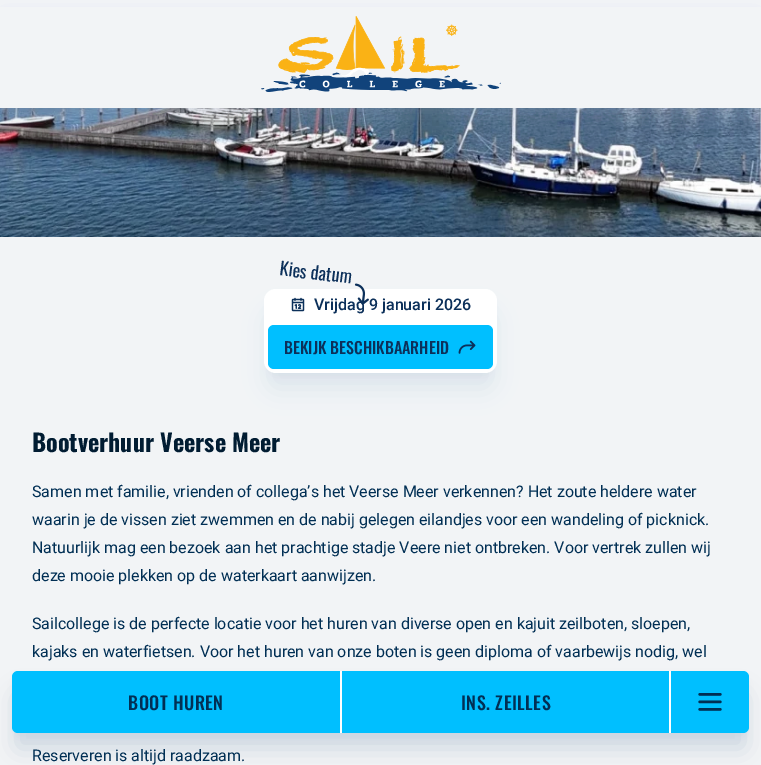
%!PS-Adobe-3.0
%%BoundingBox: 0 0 761 765
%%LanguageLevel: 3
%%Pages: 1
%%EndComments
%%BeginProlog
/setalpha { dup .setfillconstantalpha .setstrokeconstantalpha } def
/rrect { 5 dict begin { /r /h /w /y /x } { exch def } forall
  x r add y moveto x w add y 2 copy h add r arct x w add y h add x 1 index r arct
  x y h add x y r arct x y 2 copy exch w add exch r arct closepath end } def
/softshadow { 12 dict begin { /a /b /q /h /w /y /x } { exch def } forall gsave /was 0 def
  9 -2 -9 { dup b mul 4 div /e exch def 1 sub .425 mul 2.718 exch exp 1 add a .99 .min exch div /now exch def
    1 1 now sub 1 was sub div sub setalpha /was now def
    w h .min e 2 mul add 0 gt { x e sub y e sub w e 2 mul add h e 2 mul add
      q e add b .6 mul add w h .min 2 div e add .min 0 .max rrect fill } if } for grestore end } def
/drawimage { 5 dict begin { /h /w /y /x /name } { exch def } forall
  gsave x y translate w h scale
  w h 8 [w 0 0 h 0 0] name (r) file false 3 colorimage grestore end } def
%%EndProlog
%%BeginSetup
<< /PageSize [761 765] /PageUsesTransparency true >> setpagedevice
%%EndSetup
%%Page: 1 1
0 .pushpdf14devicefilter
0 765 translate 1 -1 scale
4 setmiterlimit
0.949 0.957 0.965 setrgbcolor
0 0 761 765 rectfill
(images/1.raw) 0 108 761 129 drawimage
0.796 0.835 0.882 setrgbcolor
270 303 221 72 6 5 0.5 softshadow
269 314 223 74 7 12.5 0.5 softshadow
1 setgray
264 289 233 84 12 rrect fill
(images/3.raw) 291 297 14 15 drawimage
0 0.749 1 setrgbcolor
268 325 225 44 6 rrect fill
(images/4.raw) 458 340 18 14 drawimage
0.58 0.639 0.722 setrgbcolor
6 14 749 96 0 5 0.2 softshadow
5 25 751 98 0 12.5 0.2 softshadow
0.949 0.957 0.965 setrgbcolor
0 7 761 101 rectfill
(images/5.raw) 261 16 240 76 drawimage
0.796 0.835 0.882 setrgbcolor
18 685 725 50 0 5 1 softshadow
17 696 727 52 1 12.5 1 softshadow
0 0.749 1 setrgbcolor
12 671 737 62 6 rrect fill
1 setgray
340 671 2 62 rectfill
669 671 2 62 rectfill
(images/6.raw) 698 693 24 18 drawimage
/Oswald-Regular [18 0 0 -18 0 0] selectfont
0.047 0.188 0.353 setrgbcolor
gsave 279 275 translate 7 rotate 0 0 moveto (Kies datum) show grestore
/Roboto-Medium [16 0 0 -16 0 0] selectfont
314 310 moveto (Vrijdag 9 januari 2026) show
(images/2.raw) 354 283 15 22 drawimage
/Oswald-Medium [16 0 0 -16 0 0] selectfont
284 354 moveto (BEKIJK BESCHIKBAARHEID) show
/Oswald-Bold [24 0 0 -24 0 0] selectfont
0.004 0.11 0.196 setrgbcolor
32 452 moveto (Bootverhuur Veerse Meer) show
/Roboto-Regular [16 0 0 -16 0 0] selectfont
0.004 0.184 0.329 setrgbcolor
32 497 moveto (Samen met familie, vrienden of collega’s het Veerse Meer verkennen? Het zoute heldere water) show
32 525 moveto (waarin je de vissen ziet zwemmen en de nabij gelegen eilandjes voor een wandeling of picknick.) show
32 553 moveto (Natuurlijk mag een bezoek aan het prachtige stadje Veere niet ontbreken. Voor vertrek zullen wij) show
32 581 moveto (deze mooie plekken op de waterkaart aanwijzen.) show
32 629 moveto (Sailcollege is de perfecte locatie voor het huren van diverse open en kajuit zeilboten, sloepen,) show
32 657 moveto (kajaks en waterfietsen. Voor het huren van onze boten is geen diploma of vaarbewijs nodig, wel) show
32 761 moveto (Reserveren is altijd raadzaam.) show
/Oswald-Medium [18 0 0 -18 0 0] selectfont
128 710 moveto 0.5 0 (BOOT HUREN) ashow
461 710 moveto 0.5 0 (INS. ZEILLES) ashow
.poppdf14devicefilter showpage
%%EOF
